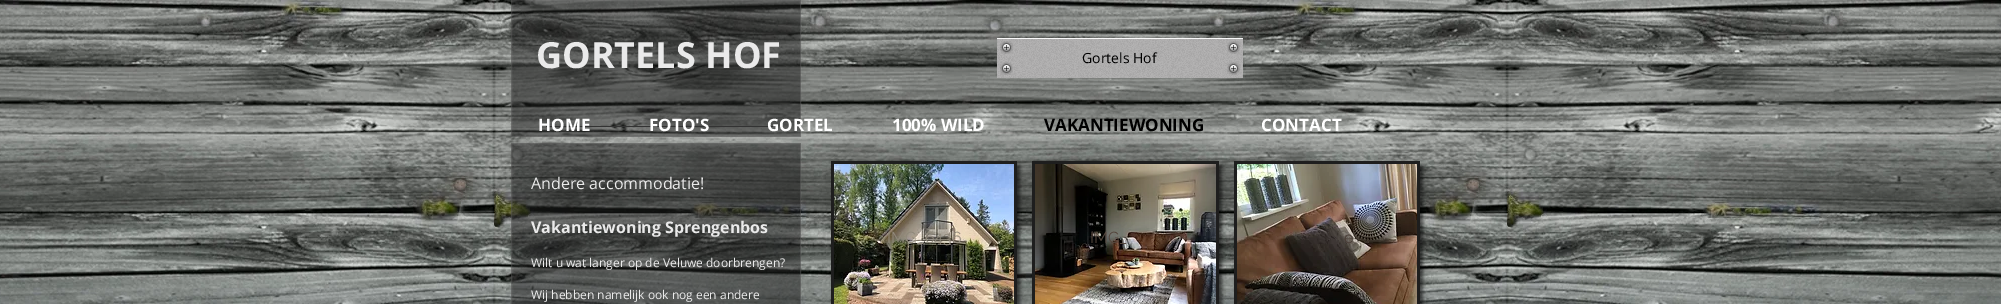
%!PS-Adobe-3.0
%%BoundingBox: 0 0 2001 304
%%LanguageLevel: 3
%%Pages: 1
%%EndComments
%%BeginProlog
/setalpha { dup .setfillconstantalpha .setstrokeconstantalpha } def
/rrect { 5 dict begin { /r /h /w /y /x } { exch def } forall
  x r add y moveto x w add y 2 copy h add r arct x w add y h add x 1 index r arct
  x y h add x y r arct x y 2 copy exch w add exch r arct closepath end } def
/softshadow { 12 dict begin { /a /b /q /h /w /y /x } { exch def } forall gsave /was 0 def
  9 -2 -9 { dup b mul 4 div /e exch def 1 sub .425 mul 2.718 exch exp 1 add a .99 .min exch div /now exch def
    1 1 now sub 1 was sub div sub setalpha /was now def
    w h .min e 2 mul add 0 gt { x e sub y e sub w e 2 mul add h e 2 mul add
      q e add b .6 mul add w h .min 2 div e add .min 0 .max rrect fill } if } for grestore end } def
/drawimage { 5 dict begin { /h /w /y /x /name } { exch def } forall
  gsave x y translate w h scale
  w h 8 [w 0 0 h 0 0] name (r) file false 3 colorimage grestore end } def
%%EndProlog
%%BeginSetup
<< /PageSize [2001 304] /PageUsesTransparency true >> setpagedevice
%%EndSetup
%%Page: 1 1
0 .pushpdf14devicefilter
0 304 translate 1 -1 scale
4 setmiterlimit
1 setgray
0 0 2001 304 rectfill
(images/1.raw) 0 0 2001 304 drawimage
0.5 setalpha
0.118 setgray
511 0 290 137 1 rrect fill
0.18 setalpha
0.698 0.694 0.694 setrgbcolor
511.5 0.5 289 136 rectstroke
1 setalpha
0.2 setgray
546 126 230 1 rectfill
0.698 0.694 0.694 setrgbcolor
997 38 246 40 rectfill
(images/2.raw) 997 38 246 40 drawimage
0.92 setalpha
1 setgray
997 38 246 1 rectfill
1 setalpha
(images/3.raw) 1000 41 13 13 drawimage
(images/4.raw) 1227 41 13 13 drawimage
(images/5.raw) 1000 62 13 13 drawimage
(images/6.raw) 1227 62 13 13 drawimage
0.5 setalpha
0.118 setgray
511 143 290 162 1 rrect fill
0.18 setalpha
0.698 0.694 0.694 setrgbcolor
511.5 143.5 289 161 rectstroke
1 setalpha
0 setgray
834 165 186 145 0 2 0.6 softshadow
0.118 setgray
831 161 186 143 rectfill
(images/7.raw) 834 164 180 140 drawimage
0 setgray
1035 165 187 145 0 2 0.6 softshadow
0.118 setgray
1032 161 187 143 rectfill
(images/8.raw) 1035 164 181 140 drawimage
0 setgray
1237 165 186 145 0 2 0.6 softshadow
0.118 setgray
1234 161 186 143 rectfill
(images/9.raw) 1237 164 180 140 drawimage
/OpenSans-Bold [36 0 0 -36 0 0] selectfont
0.918 setgray
536 68 moveto (GORTELS HOF) show
/OpenSans-Regular [14 0 0 -14 0 0] selectfont
0 setgray
1082 63 moveto (Gortels Hof) show
/OpenSans-Bold [17 0 0 -17 0 0] selectfont
1 setgray
538 131 moveto (HOME) show
649 131 moveto (FOTO'S) show
767 131 moveto (GORTEL) show
892 131 moveto (100% WILD) show
0 setgray
1044 131 moveto (VAKANTIEWONING) show
1 setgray
1261 131 moveto (CONTACT) show
/OpenSans-Regular [16 0 0 -16 0 0] selectfont
0.918 setgray
531 189 moveto (Andere accommodatie!) show
/OpenSans-Bold [16 0 0 -16 0 0] selectfont
531 233 moveto (Vakantiewoning Sprengenbos) show
/OpenSans-Regular [12 0 0 -12 0 0] selectfont
531 267 moveto (Wilt u wat langer op de Veluwe doorbrengen?) show
531 299 moveto (Wij hebben namelijk ook nog een andere) show
/Raleway-Regular [16 0 0 -16 0 0] selectfont
0.565 0.533 0.478 setrgbcolor
887 243 moveto (IMG_6436) show
0.333 0.278 0.239 setrgbcolor
1090 243 moveto (IMG_) show
0.286 0.239 0.212 setrgbcolor
1344 243 moveto (e) show
.poppdf14devicefilter showpage
%%EOF
